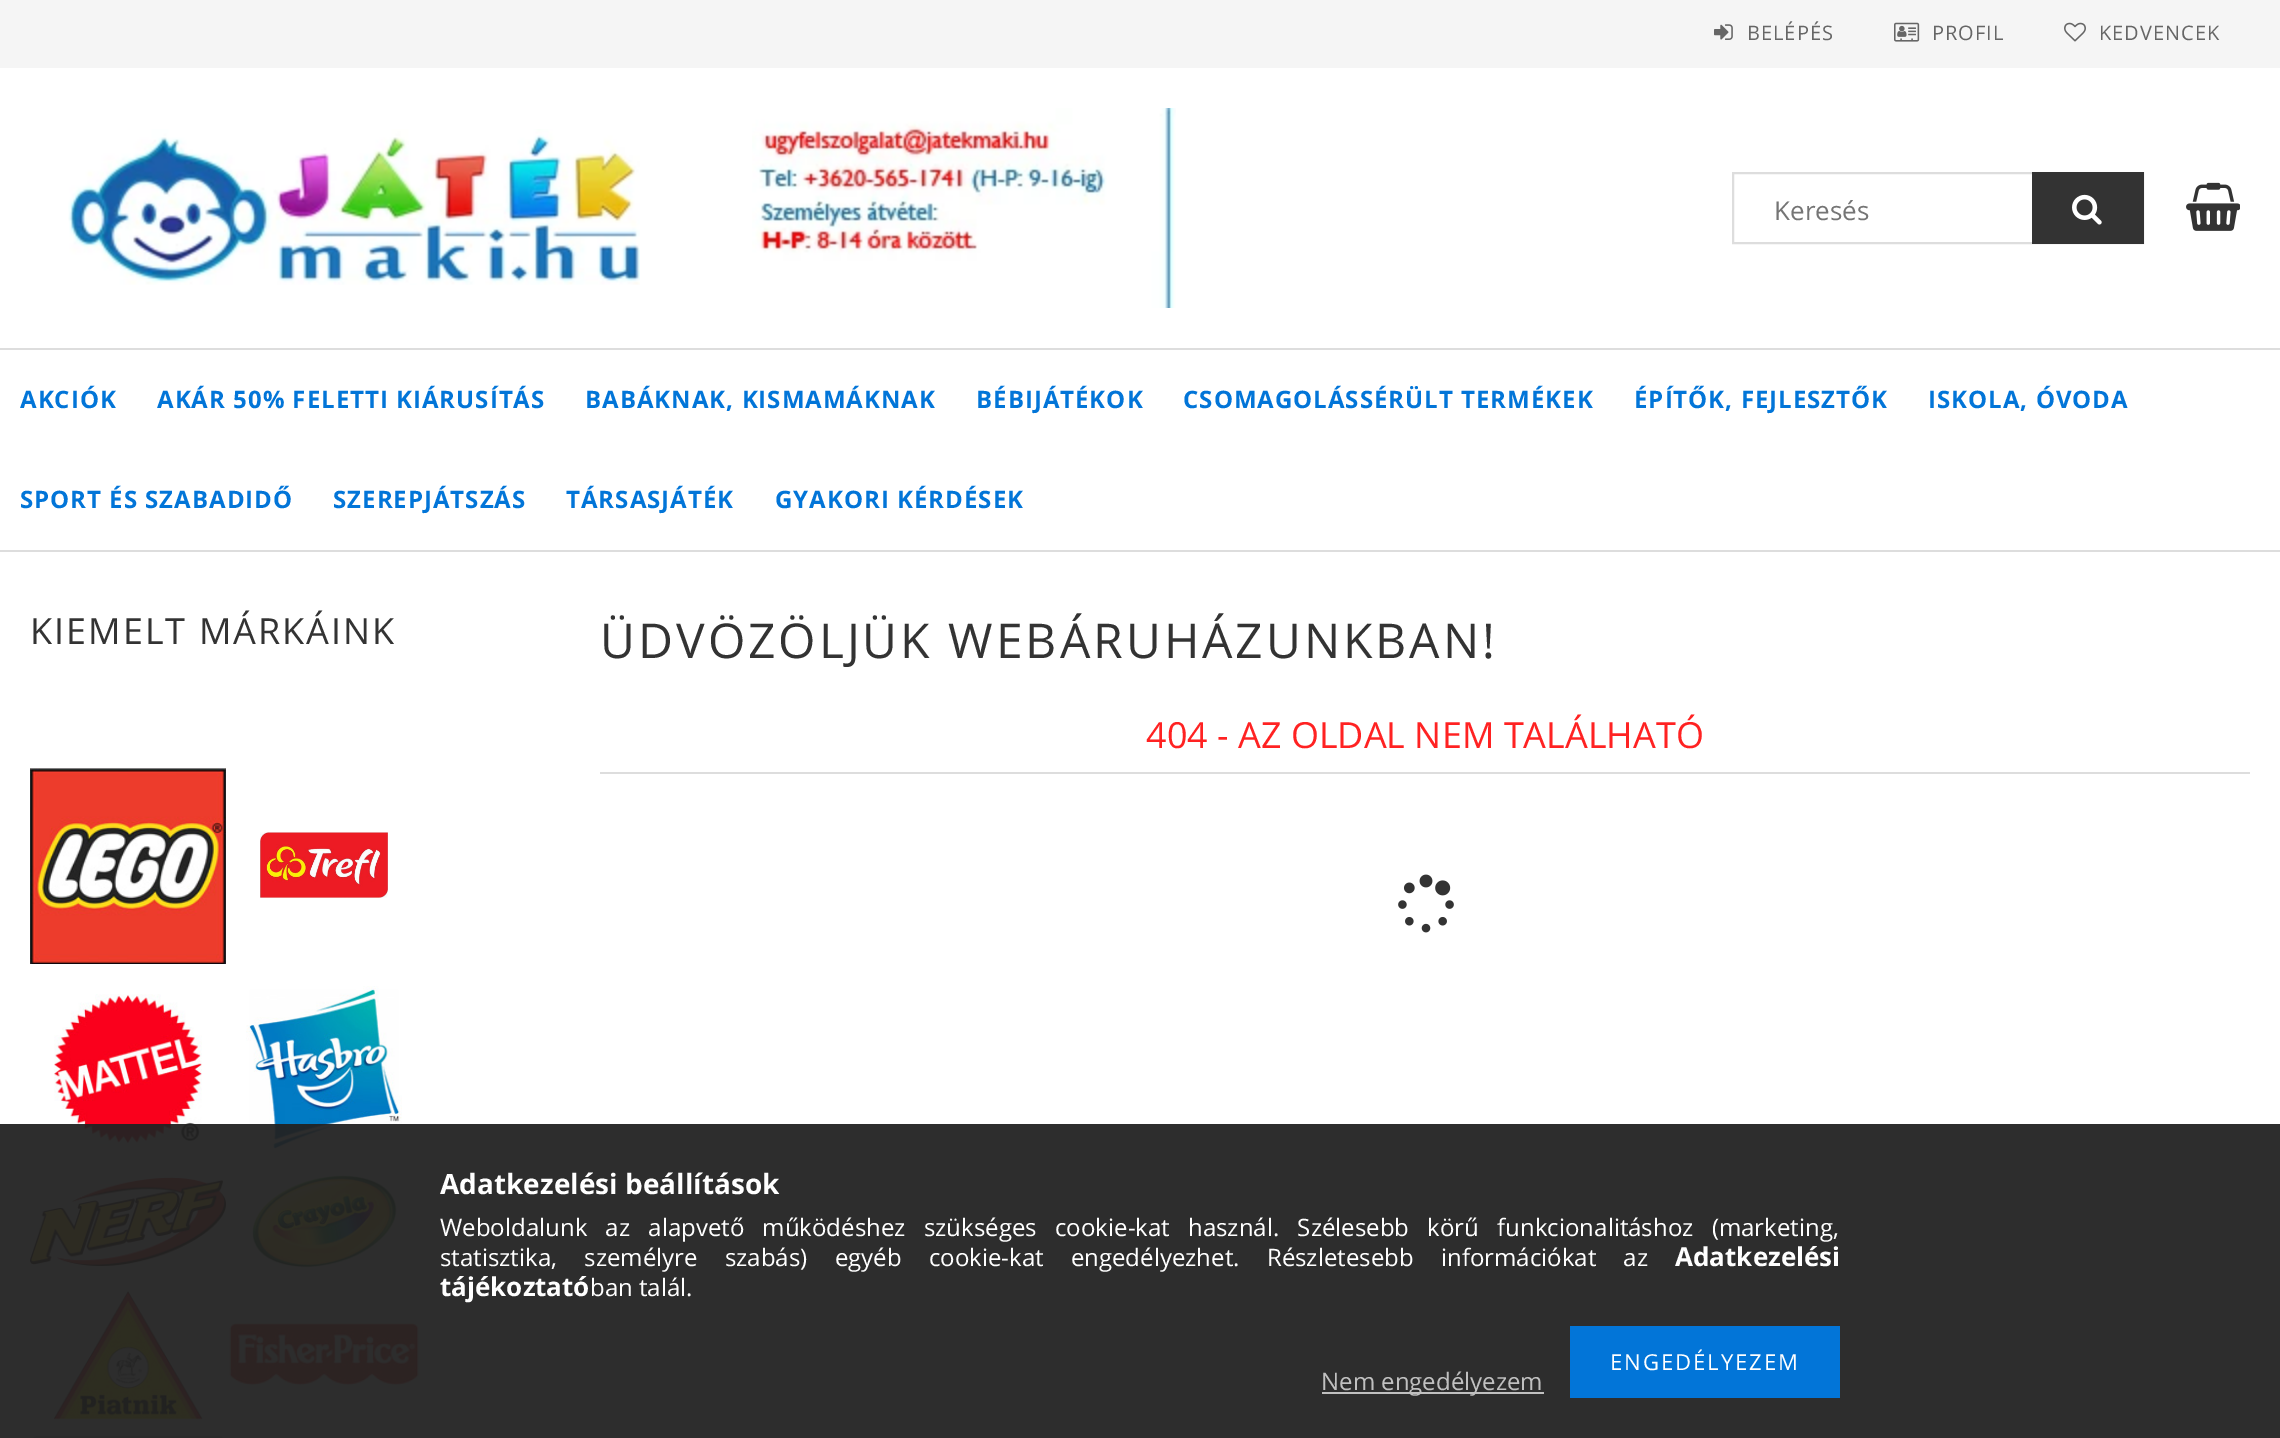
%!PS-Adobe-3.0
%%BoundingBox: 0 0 2280 1438
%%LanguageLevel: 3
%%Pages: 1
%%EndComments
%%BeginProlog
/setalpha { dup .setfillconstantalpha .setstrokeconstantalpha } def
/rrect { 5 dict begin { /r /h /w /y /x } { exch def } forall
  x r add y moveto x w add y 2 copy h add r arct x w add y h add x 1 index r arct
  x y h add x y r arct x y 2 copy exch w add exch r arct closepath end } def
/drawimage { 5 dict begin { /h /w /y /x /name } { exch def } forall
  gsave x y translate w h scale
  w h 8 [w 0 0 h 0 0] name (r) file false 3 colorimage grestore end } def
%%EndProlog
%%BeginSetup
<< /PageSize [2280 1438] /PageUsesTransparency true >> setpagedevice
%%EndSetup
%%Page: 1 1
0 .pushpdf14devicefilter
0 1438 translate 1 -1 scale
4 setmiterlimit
1 setgray
0 0 2280 1438 rectfill
0.961 setgray
0 0 2280 68 rectfill
(images/1.raw) 1714 24 19 16 drawimage
(images/2.raw) 1894 22 26 20 drawimage
(images/3.raw) 2064 22 22 20 drawimage
(images/4.raw) 68 129 572 156 drawimage
(images/5.raw) 752 108 424 200 drawimage
0.867 setgray
2 setlinewidth
1733 173 410 70 rectstroke
0.2 setgray
2032 172 112 72 rectfill
(images/6.raw) 2072 194 30 31 drawimage
(images/7.raw) 2186 182 54 49 drawimage
0.867 setgray
0 348 2280 2 rectfill
0 550 2280 2 rectfill
(images/8.raw) 30 768 196 196 drawimage
(images/9.raw) 260 832 128 66 drawimage
(images/10.raw) 54 994 148 156 drawimage
(images/11.raw) 246 986 156 164 drawimage
(images/12.raw) 30 1177 196 89 drawimage
(images/13.raw) 246 1175 156 95 drawimage
(images/14.raw) 50 1288 156 132 drawimage
(images/15.raw) 226 1318 196 70 drawimage
0.8 setgray
31 1437 194 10 7 rrect stroke
0.867 setgray
600 772 1650 2 rectfill
(images/16.raw) 1398 874 56 59 drawimage
0.95 setalpha
0.133 setgray
0 1124 2280 314 rectfill
1 setalpha
0.008 0.459 0.847 setrgbcolor
1570 1326 270 72 rectfill
0.753 setgray
1322 1392 222 2 rectfill
/OpenSans-Regular [20 0 0 -20 0 0] selectfont
0.4 setgray
1747 40 moveto 1 0 (BELÉPÉS) ashow
1932 40 moveto 1 0 (PROFIL) ashow
2099 40 moveto 1 0 (KEDVENCEK) ashow
/OpenSans-Regular [26 0 0 -26 0 0] selectfont
0.459 setgray
1774 220 moveto (Keresés) show
/OpenSans-Bold [24 0 0 -24 0 0] selectfont
0.008 0.459 0.847 setrgbcolor
20 408 moveto 1 0 (AKCIÓK) ashow
157 408 moveto 1 0 (AKÁR 50% FELETTI KIÁRUSÍTÁS) ashow
585 408 moveto 1 0 (BABÁKNAK, KISMAMÁKNAK) ashow
976 408 moveto 1 0 (BÉBIJÁTÉKOK) ashow
1183 408 moveto 1 0 (CSOMAGOLÁSSÉRÜLT TERMÉKEK) ashow
1634 408 moveto 1 0 (ÉPÍTŐK, FEJLESZTŐK) ashow
1928 408 moveto 1 0 (ISKOLA, ÓVODA) ashow
20 508 moveto 1 0 (SPORT ÉS SZABADIDŐ) ashow
333 508 moveto 1 0 (SZEREPJÁTSZÁS) ashow
566 508 moveto 1 0 (TÁRSASJÁTÉK) ashow
775 508 moveto 1 0 (GYAKORI KÉRDÉSEK) ashow
/OpenSans-Regular [36 0 0 -36 0 0] selectfont
0.2 setgray
30 644 moveto 2 0 (KIEMELT MÁRKÁINK) ashow
/OpenSans-Regular [48 0 0 -48 0 0] selectfont
600 658 moveto 3 0 (ÜDVÖZÖLJÜK WEBÁRUHÁZUNKBAN!) ashow
/OpenSans-Regular [36 0 0 -36 0 0] selectfont
1 0.133 0.133 setrgbcolor
1146 748 moveto (404 - AZ OLDAL NEM TALÁLHATÓ) show
/OpenSans-Bold [28 0 0 -28 0 0] selectfont
1 setgray
440 1194 moveto (Adatkezelési beállítások) show
/OpenSans-Regular [24 0 0 -24 0 0] selectfont
440 1236 moveto 12 0 32 (Weboldalunk az alapvető működéshez szükséges cookie-kat használ. Szélesebb körű funkcionalitáshoz \(marketing,) widthshow
440 1266 moveto 21 0 32 (statisztika, személyre szabás\) egyéb cookie-kat engedélyezhet. Részletesebb információkat az) widthshow
/OpenSans-Bold [26 0 0 -26 0 0] selectfont
1675 1266 moveto (Adatkezelési) show
440 1296 moveto (tájékoztató) show
/OpenSans-Regular [24 0 0 -24 0 0] selectfont
590 1296 moveto (ban talál.) show
/OpenSans-Regular [22 0 0 -22 0 0] selectfont
1610 1370 moveto 2 0 (ENGEDÉLYEZEM) ashow
/OpenSans-Regular [24 0 0 -24 0 0] selectfont
0.753 setgray
1321 1390 moveto (Nem engedélyezem) show
.poppdf14devicefilter showpage
%%EOF
